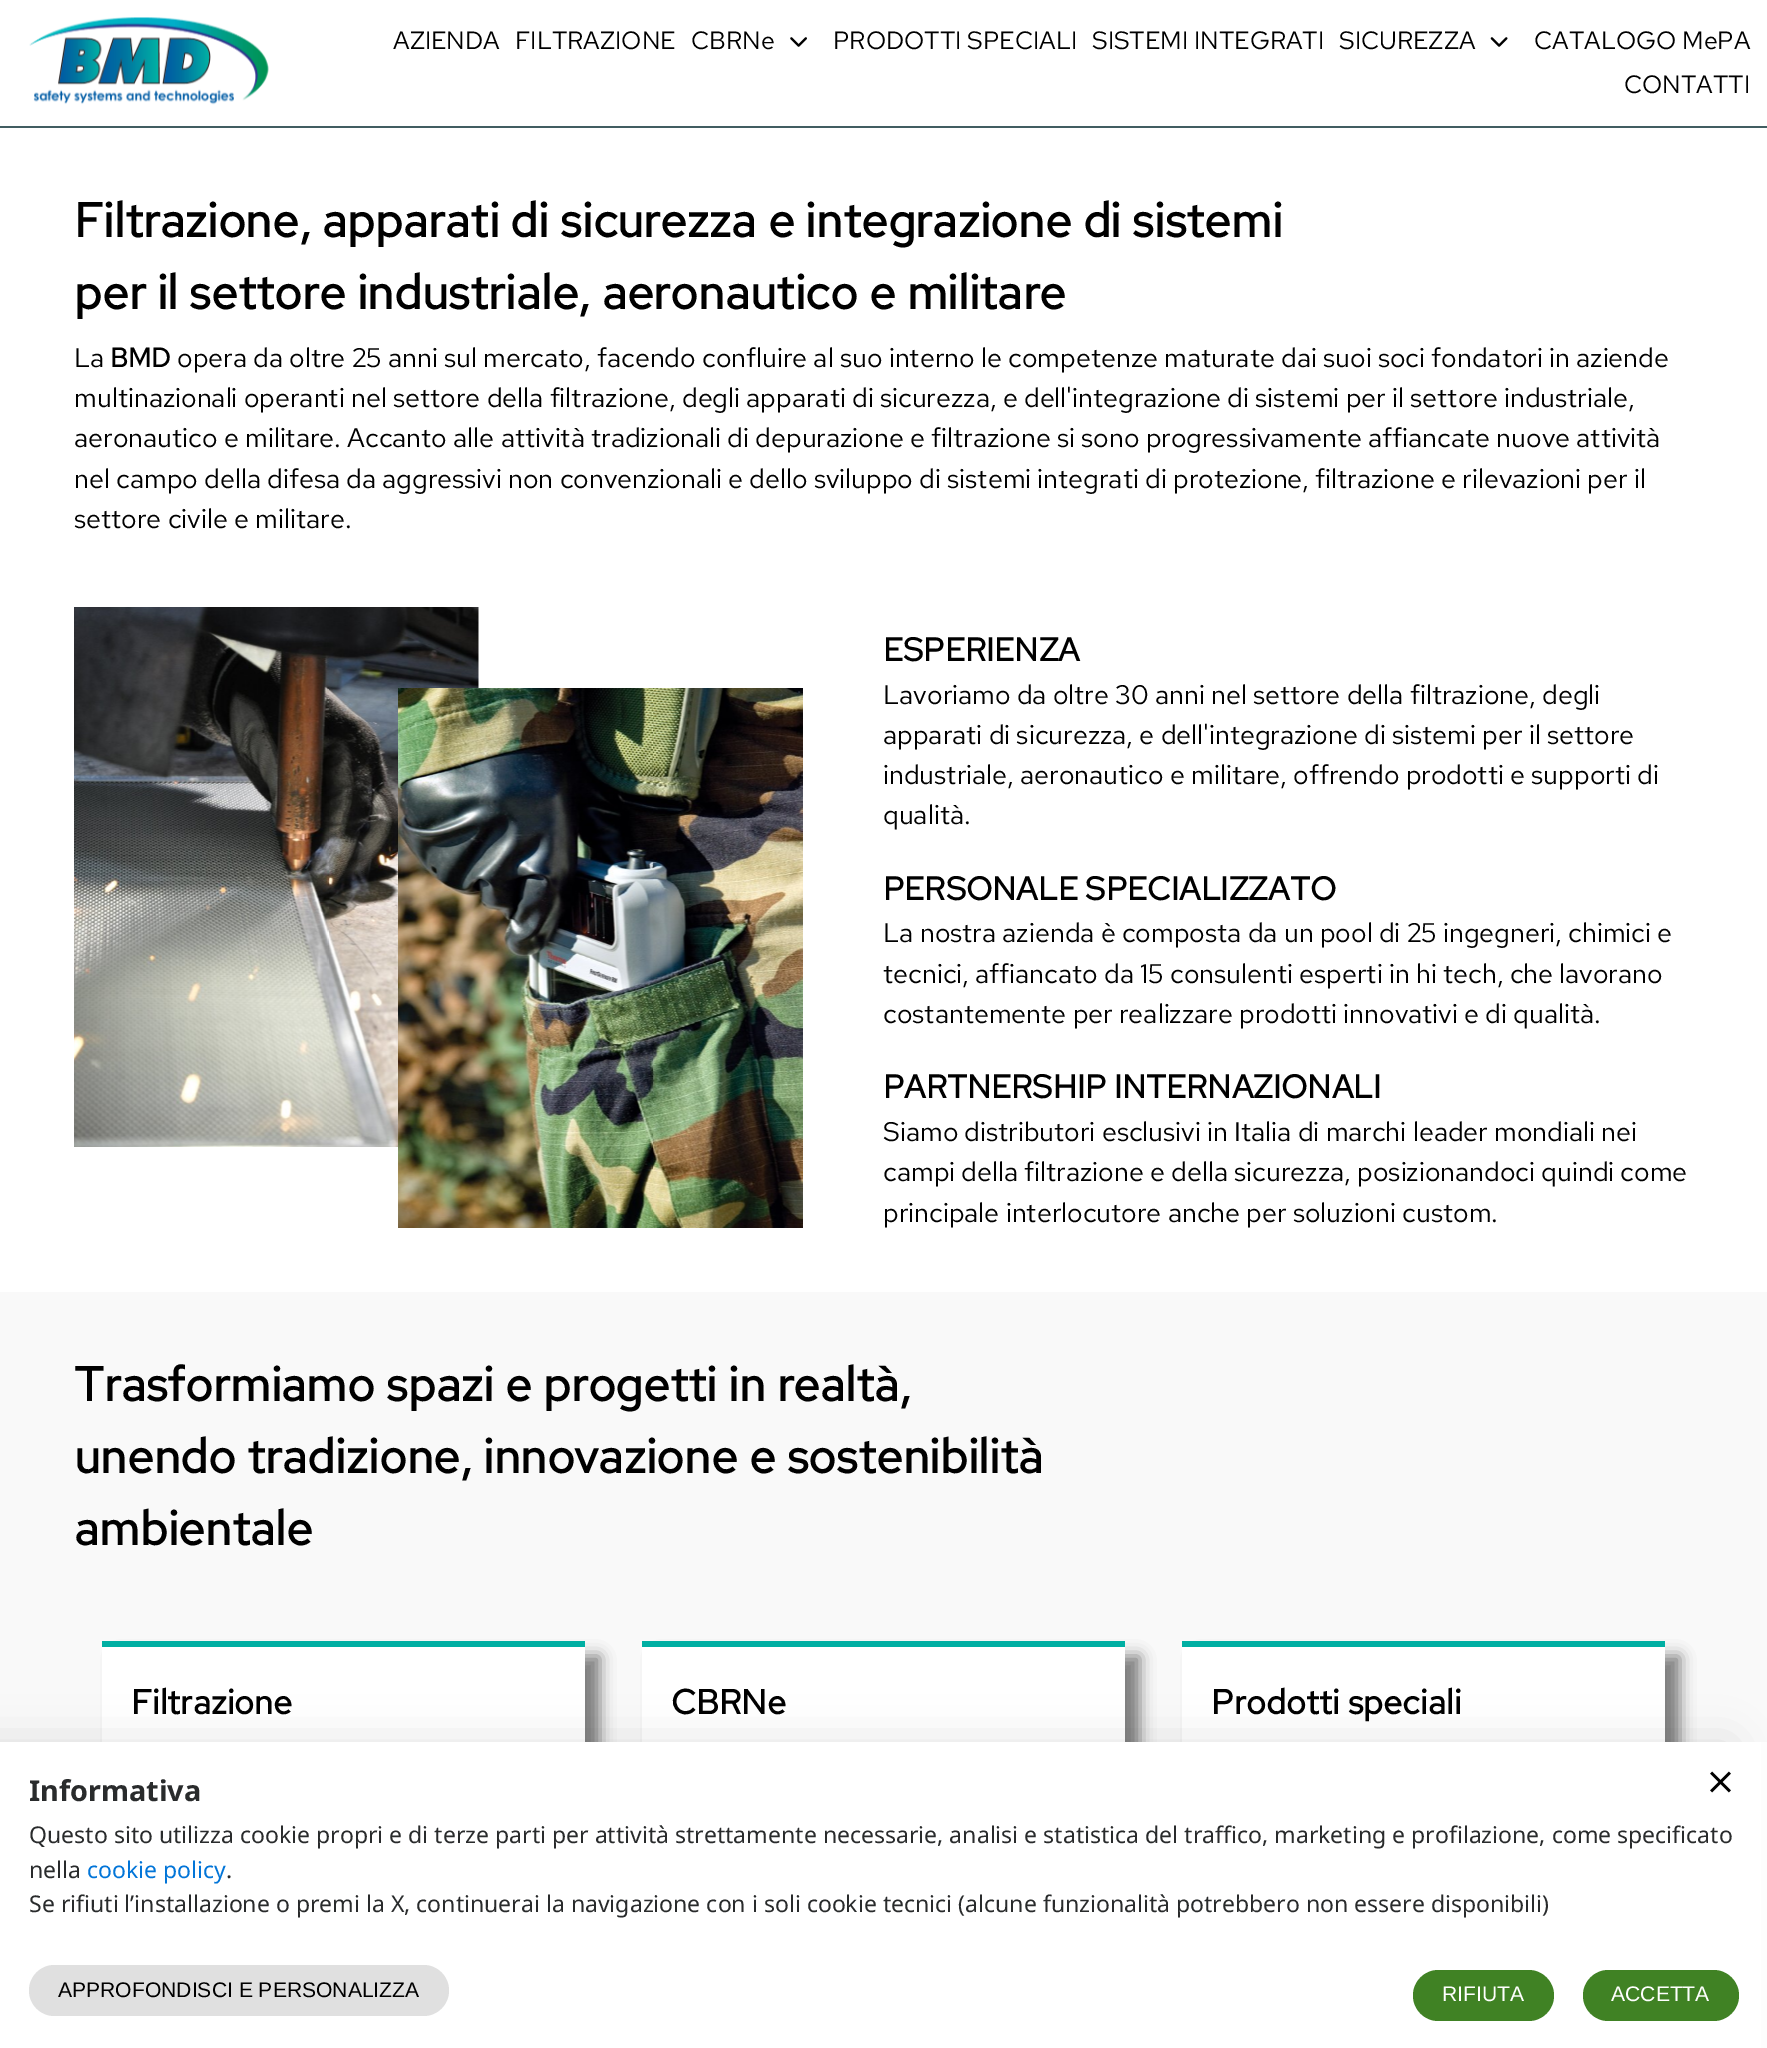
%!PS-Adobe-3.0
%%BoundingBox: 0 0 1767 2048
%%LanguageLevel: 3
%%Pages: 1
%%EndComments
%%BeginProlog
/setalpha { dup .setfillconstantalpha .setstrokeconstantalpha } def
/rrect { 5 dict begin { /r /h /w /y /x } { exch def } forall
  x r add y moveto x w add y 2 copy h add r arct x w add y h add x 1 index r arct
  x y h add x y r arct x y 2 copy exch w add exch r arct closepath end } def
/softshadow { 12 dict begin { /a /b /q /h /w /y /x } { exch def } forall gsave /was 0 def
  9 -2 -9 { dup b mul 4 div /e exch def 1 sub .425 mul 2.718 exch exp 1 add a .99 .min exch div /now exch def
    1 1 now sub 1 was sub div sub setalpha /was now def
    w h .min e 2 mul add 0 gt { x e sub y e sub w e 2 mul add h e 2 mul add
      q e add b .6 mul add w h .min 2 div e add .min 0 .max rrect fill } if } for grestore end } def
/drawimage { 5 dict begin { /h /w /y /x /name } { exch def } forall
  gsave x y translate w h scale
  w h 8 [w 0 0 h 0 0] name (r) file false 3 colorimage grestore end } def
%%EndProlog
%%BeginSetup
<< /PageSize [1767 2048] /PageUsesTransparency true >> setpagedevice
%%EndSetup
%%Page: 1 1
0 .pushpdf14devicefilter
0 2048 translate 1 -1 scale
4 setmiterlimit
1 setgray
0 0 1767 2048 rectfill
0.255 0.365 0.38 setrgbcolor
0 126 1767 2 rectfill
(images/1.raw) 29 17 240 88 drawimage
(images/2.raw) 790 37 17 10 drawimage
(images/3.raw) 1490 37 18 10 drawimage
(images/4.raw) 74 607 405 540 drawimage
(images/5.raw) 398 688 405 540 drawimage
0.976 setgray
0 1292 1767 450 rectfill
0 setgray
117 1656 483 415 0 7.5 0.5 softshadow
1 setgray
102 1647 483 95 rectfill
0 0.686 0.639 setrgbcolor
102 1641 483 6 rectfill
0 setgray
657 1656 483 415 0 7.5 0.5 softshadow
1 setgray
642 1647 483 95 rectfill
0 0.686 0.639 setrgbcolor
642 1641 483 6 rectfill
0 setgray
1197 1656 483 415 0 7.5 0.5 softshadow
1 setgray
1182 1647 483 95 rectfill
0 0.686 0.639 setrgbcolor
1182 1641 483 6 rectfill
0 setgray
-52 1745 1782 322 0 22.5 0.12 softshadow
1 setgray
0 1742 1761 306 rectfill
(images/6.raw) 1710 1771 21 22 drawimage
0.878 setgray
29 1965 420 51 25.5 rrect fill
0.251 0.51 0.141 setrgbcolor
1413 1970 141 51 25.5 rrect fill
1583 1970 156 51 25.5 rrect fill
/RedHatText-Regular [25 0 0 -25 0 0] selectfont
0 setgray
393 49 moveto (AZIENDA) show
515 49 moveto (FILTRAZIONE) show
691 49 moveto (CBRNe) show
833 49 moveto (PRODOTTI SPECIALI) show
1092 49 moveto (SISTEMI INTEGRATI) show
1339 49 moveto (SICUREZZA) show
1534 49 moveto (CATALOGO MePA) show
1624 93 moveto (CONTATTI) show
/RedHatText-Bold [48 0 0 -48 0 0] selectfont
74 237 moveto (Filtrazione, apparati di sicurezza e integrazione di sistemi) show
74 309 moveto (per il settore industriale, aeronautico e militare) show
/RedHatText-Regular [26.88 0 0 -26.88 0 0] selectfont
74 367 moveto (La) show
/RedHatText-Bold [26.88 0 0 -26.88 0 0] selectfont
110 367 moveto (BMD) show
/RedHatText-Regular [26.88 0 0 -26.88 0 0] selectfont
177 367 moveto (opera da oltre 25 anni sul mercato, facendo confluire al suo interno le competenze maturate dai suoi soci fondatori in aziende) show
74 407 moveto (multinazionali operanti nel settore della filtrazione, degli apparati di sicurezza, e dell'integrazione di sistemi per il settore industriale,) show
74 447 moveto (aeronautico e militare. Accanto alle attività tradizionali di depurazione e filtrazione si sono progressivamente affiancate nuove attività) show
74 488 moveto (nel campo della difesa da aggressivi non convenzionali e dello sviluppo di sistemi integrati di protezione, filtrazione e rilevazioni per il) show
74 528 moveto (settore civile e militare.) show
/RedHatText-Bold [32.6 0 0 -32.6 0 0] selectfont
883 661 moveto (ESPERIENZA) show
/RedHatText-Regular [26.88 0 0 -26.88 0 0] selectfont
883 704 moveto (Lavoriamo da oltre 30 anni nel settore della filtrazione, degli) show
883 744 moveto (apparati di sicurezza, e dell'integrazione di sistemi per il settore) show
883 784 moveto (industriale, aeronautico e militare, offrendo prodotti e supporti di) show
883 824 moveto (qualità.) show
/RedHatText-Bold [32.6 0 0 -32.6 0 0] selectfont
883 900 moveto (PERSONALE SPECIALIZZATO) show
/RedHatText-Regular [26.88 0 0 -26.88 0 0] selectfont
883 942 moveto (La nostra azienda è composta da un pool di 25 ingegneri, chimici e) show
883 983 moveto (tecnici, affiancato da 15 consulenti esperti in hi tech, che lavorano) show
883 1023 moveto (costantemente per realizzare prodotti innovativi e di qualità.) show
/RedHatText-Bold [32.6 0 0 -32.6 0 0] selectfont
883 1098 moveto (PARTNERSHIP INTERNAZIONALI) show
/RedHatText-Regular [26.88 0 0 -26.88 0 0] selectfont
883 1141 moveto (Siamo distributori esclusivi in Italia di marchi leader mondiali nei) show
883 1181 moveto (campi della filtrazione e della sicurezza, posizionandoci quindi come) show
883 1222 moveto (principale interlocutore anche per soluzioni custom.) show
/RedHatText-Bold [48 0 0 -48 0 0] selectfont
74 1401 moveto (Trasformiamo spazi e progetti in realtà,) show
74 1473 moveto (unendo tradizione, innovazione e sostenibilità) show
74 1545 moveto (ambientale) show
/RedHatText-Bold [34.5 0 0 -34.5 0 0] selectfont
131 1714 moveto (Filtrazione) show
671 1714 moveto (CBRNe) show
1211 1714 moveto (Prodotti speciali) show
/NotoSans-Bold [28.75 0 0 -28.75 0 0] selectfont
0.161 0.169 0.173 setrgbcolor
29 1801 moveto (Informativa) show
/NotoSans-Regular [23.05 0 0 -23.05 0 0] selectfont
29 1843 moveto (Questo sito utilizza cookie propri e di terze parti per attività strettamente necessarie, analisi e statistica del traffico, marketing e profilazione, come specificato) show
29 1878 moveto (nella) show
0.008 0.459 0.847 setrgbcolor
87 1878 moveto (cookie policy) show
0.161 0.169 0.173 setrgbcolor
226 1878 moveto (.) show
29 1912 moveto (Se rifiuti l’installazione o premi la X, continuerai la navigazione con i soli cookie tecnici \(alcune funzionalità potrebbero non essere disponibili\)) show
/LiberationSans-Regular [21.1 0 0 -21.1 0 0] selectfont
0 setgray
58 1997 moveto (APPROFONDISCI E PERSONALIZZA) show
1 setgray
1442 2001 moveto (RIFIUTA) show
1611 2001 moveto (ACCETTA) show
.poppdf14devicefilter showpage
%%EOF
